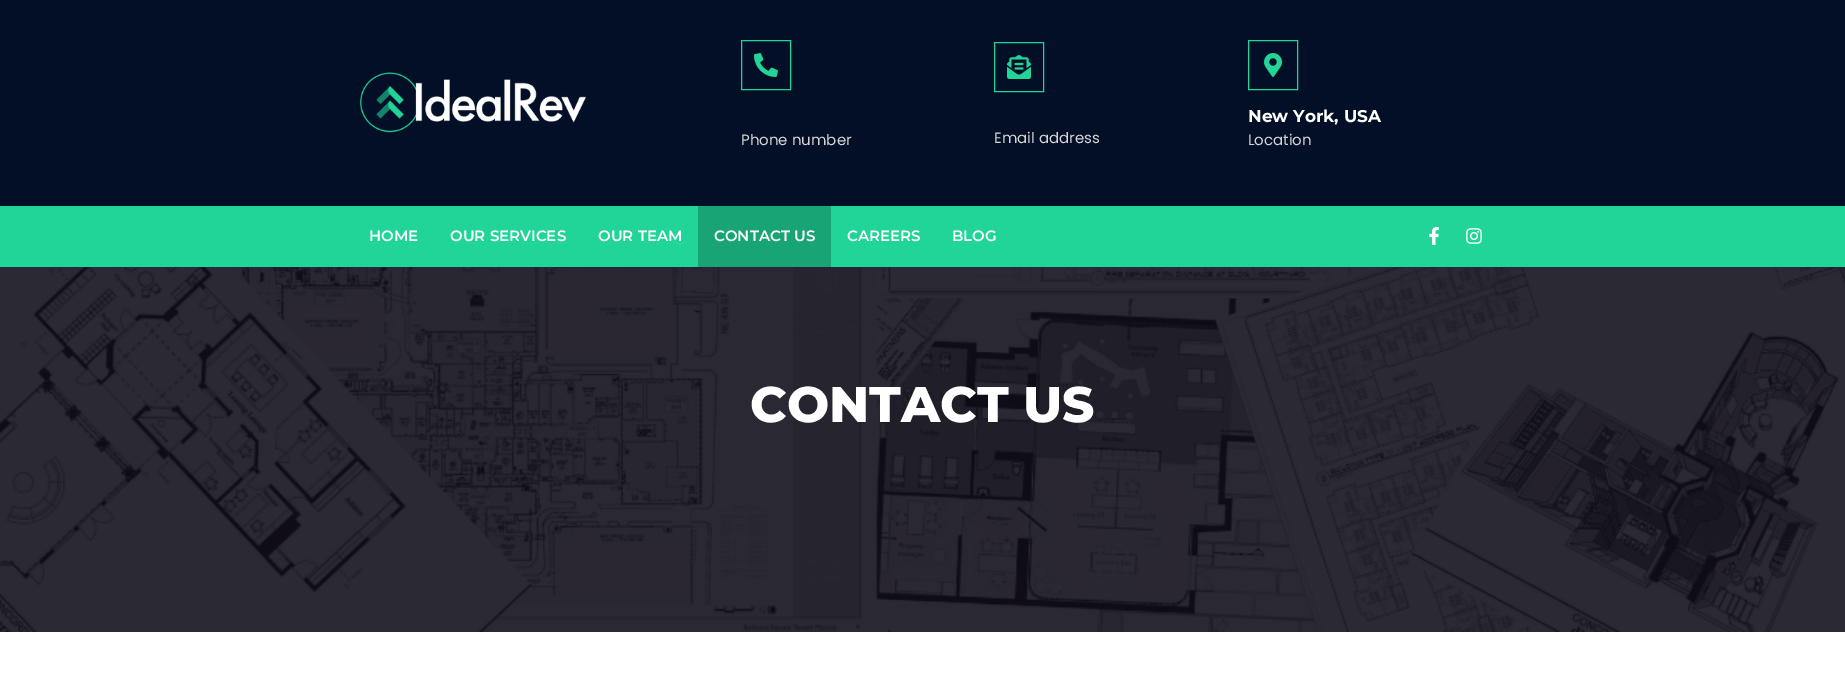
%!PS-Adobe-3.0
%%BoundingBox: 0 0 1845 678
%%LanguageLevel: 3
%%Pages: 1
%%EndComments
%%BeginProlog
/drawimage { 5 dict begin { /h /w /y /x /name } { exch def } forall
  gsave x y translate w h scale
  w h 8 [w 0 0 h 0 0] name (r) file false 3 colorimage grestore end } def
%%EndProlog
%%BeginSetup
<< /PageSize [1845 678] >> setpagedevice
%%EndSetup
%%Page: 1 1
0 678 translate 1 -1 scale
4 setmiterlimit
1 setgray
0 0 1845 678 rectfill
0.012 0.059 0.153 setrgbcolor
0 0 1845 206 rectfill
(images/1.raw) 360 72 226 61 drawimage
0.129 0.831 0.592 setrgbcolor
741.5 40.5 49 49 rectstroke
(images/2.raw) 754 53 24 24 drawimage
994.5 42.5 49 49 rectstroke
(images/3.raw) 1007 55 24 24 drawimage
1248.5 40.5 49 49 rectstroke
(images/4.raw) 1264 53 18 24 drawimage
0 206 1845 61 rectfill
0.098 0.643 0.459 setrgbcolor
698 206 133 61 rectfill
(images/5.raw) 1429 227 10 18 drawimage
(images/6.raw) 1466 228 16 16 drawimage
(images/7.raw) 0 267 1845 365 drawimage
/Poppins-Regular [15 0 0 -15 0 0] selectfont
0.835 setgray
741 145 moveto (Phone number) show
994 143 moveto (Email address) show
/Montserrat-Bold [17 0 0 -17 0 0] selectfont
1 setgray
1248 122 moveto (New York, USA) show
/Poppins-Regular [15 0 0 -15 0 0] selectfont
0.835 setgray
1248 145 moveto (Location) show
/Montserrat-SemiBold [15 0 0 -15 0 0] selectfont
1 setgray
369 241 moveto (HOME) show
450 241 moveto (OUR SERVICES) show
598 241 moveto (OUR TEAM) show
714 241 moveto (CONTACT US) show
847 241 moveto (CAREERS) show
952 241 moveto (BLOG) show
/Montserrat-ExtraBold [50 0 0 -50 0 0] selectfont
750 422 moveto (CONTACT US) show
showpage
%%EOF
